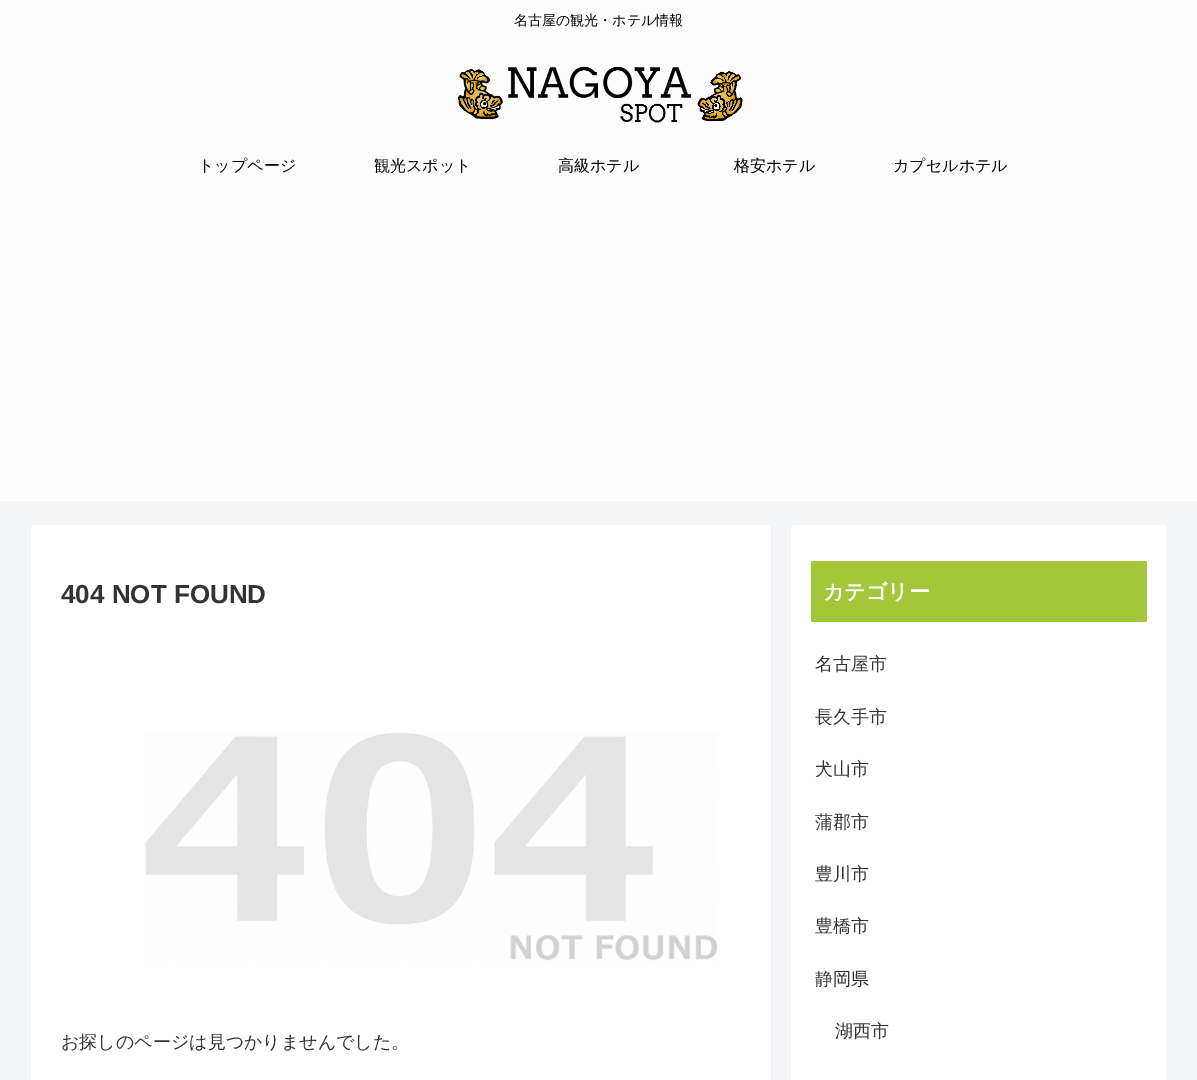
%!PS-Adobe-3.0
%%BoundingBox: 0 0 1197 1080
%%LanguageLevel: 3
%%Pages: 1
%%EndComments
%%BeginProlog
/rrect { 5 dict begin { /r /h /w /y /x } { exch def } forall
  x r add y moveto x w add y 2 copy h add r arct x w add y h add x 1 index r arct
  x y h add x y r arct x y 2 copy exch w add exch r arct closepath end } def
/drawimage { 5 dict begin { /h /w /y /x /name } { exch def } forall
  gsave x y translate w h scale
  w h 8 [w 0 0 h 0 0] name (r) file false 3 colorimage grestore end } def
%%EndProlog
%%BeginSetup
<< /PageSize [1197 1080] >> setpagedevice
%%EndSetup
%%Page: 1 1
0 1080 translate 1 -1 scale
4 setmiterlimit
0.957 0.961 0.969 setrgbcolor
0 0 1197 1080 rectfill
0.988 setgray
0 0 1197 501 rectfill
(images/1.raw) 458 66 285 57 drawimage
1 setgray
31 525 740 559 4 rrect fill
(images/2.raw) 145 732 573 229 drawimage
791 525 376 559 4 rrect fill
0.643 0.776 0.224 setrgbcolor
811 561 336 61 2 rrect fill
/WenQuanYiZenHei-Medium [14 0 0 -14 0 0] selectfont
0 setgray
514 25 moveto (名古屋の観光・ホテル情報) show
/WenQuanYiZenHei-Medium [16 0 0 -16 0 0] selectfont
198 171 moveto (トップページ) show
374 171 moveto (観光スポット) show
558 171 moveto (高級ホテル) show
734 171 moveto (格安ホテル) show
893 171 moveto (カプセルホテル) show
/LiberationSans-Bold [26 0 0 -26 0 0] selectfont
0.2 setgray
61 603 moveto (404 NOT FOUND) show
/WenQuanYiZenHei-Medium [18 0 0 -18 0 0] selectfont
61 1048 moveto (お探しのページは見つかりませんでした。) show
/WenQuanYiZenHei-Bold [21 0 0 -21 0 0] selectfont
1 setgray
823 599 moveto (カテゴリー) show
/WenQuanYiZenHei-Medium [18 0 0 -18 0 0] selectfont
0.2 setgray
815 670 moveto (名古屋市) show
815 723 moveto (長久手市) show
815 775 moveto (犬山市) show
815 828 moveto (蒲郡市) show
815 880 moveto (豊川市) show
815 932 moveto (豊橋市) show
815 985 moveto (静岡県) show
835 1037 moveto (湖西市) show
showpage
%%EOF
